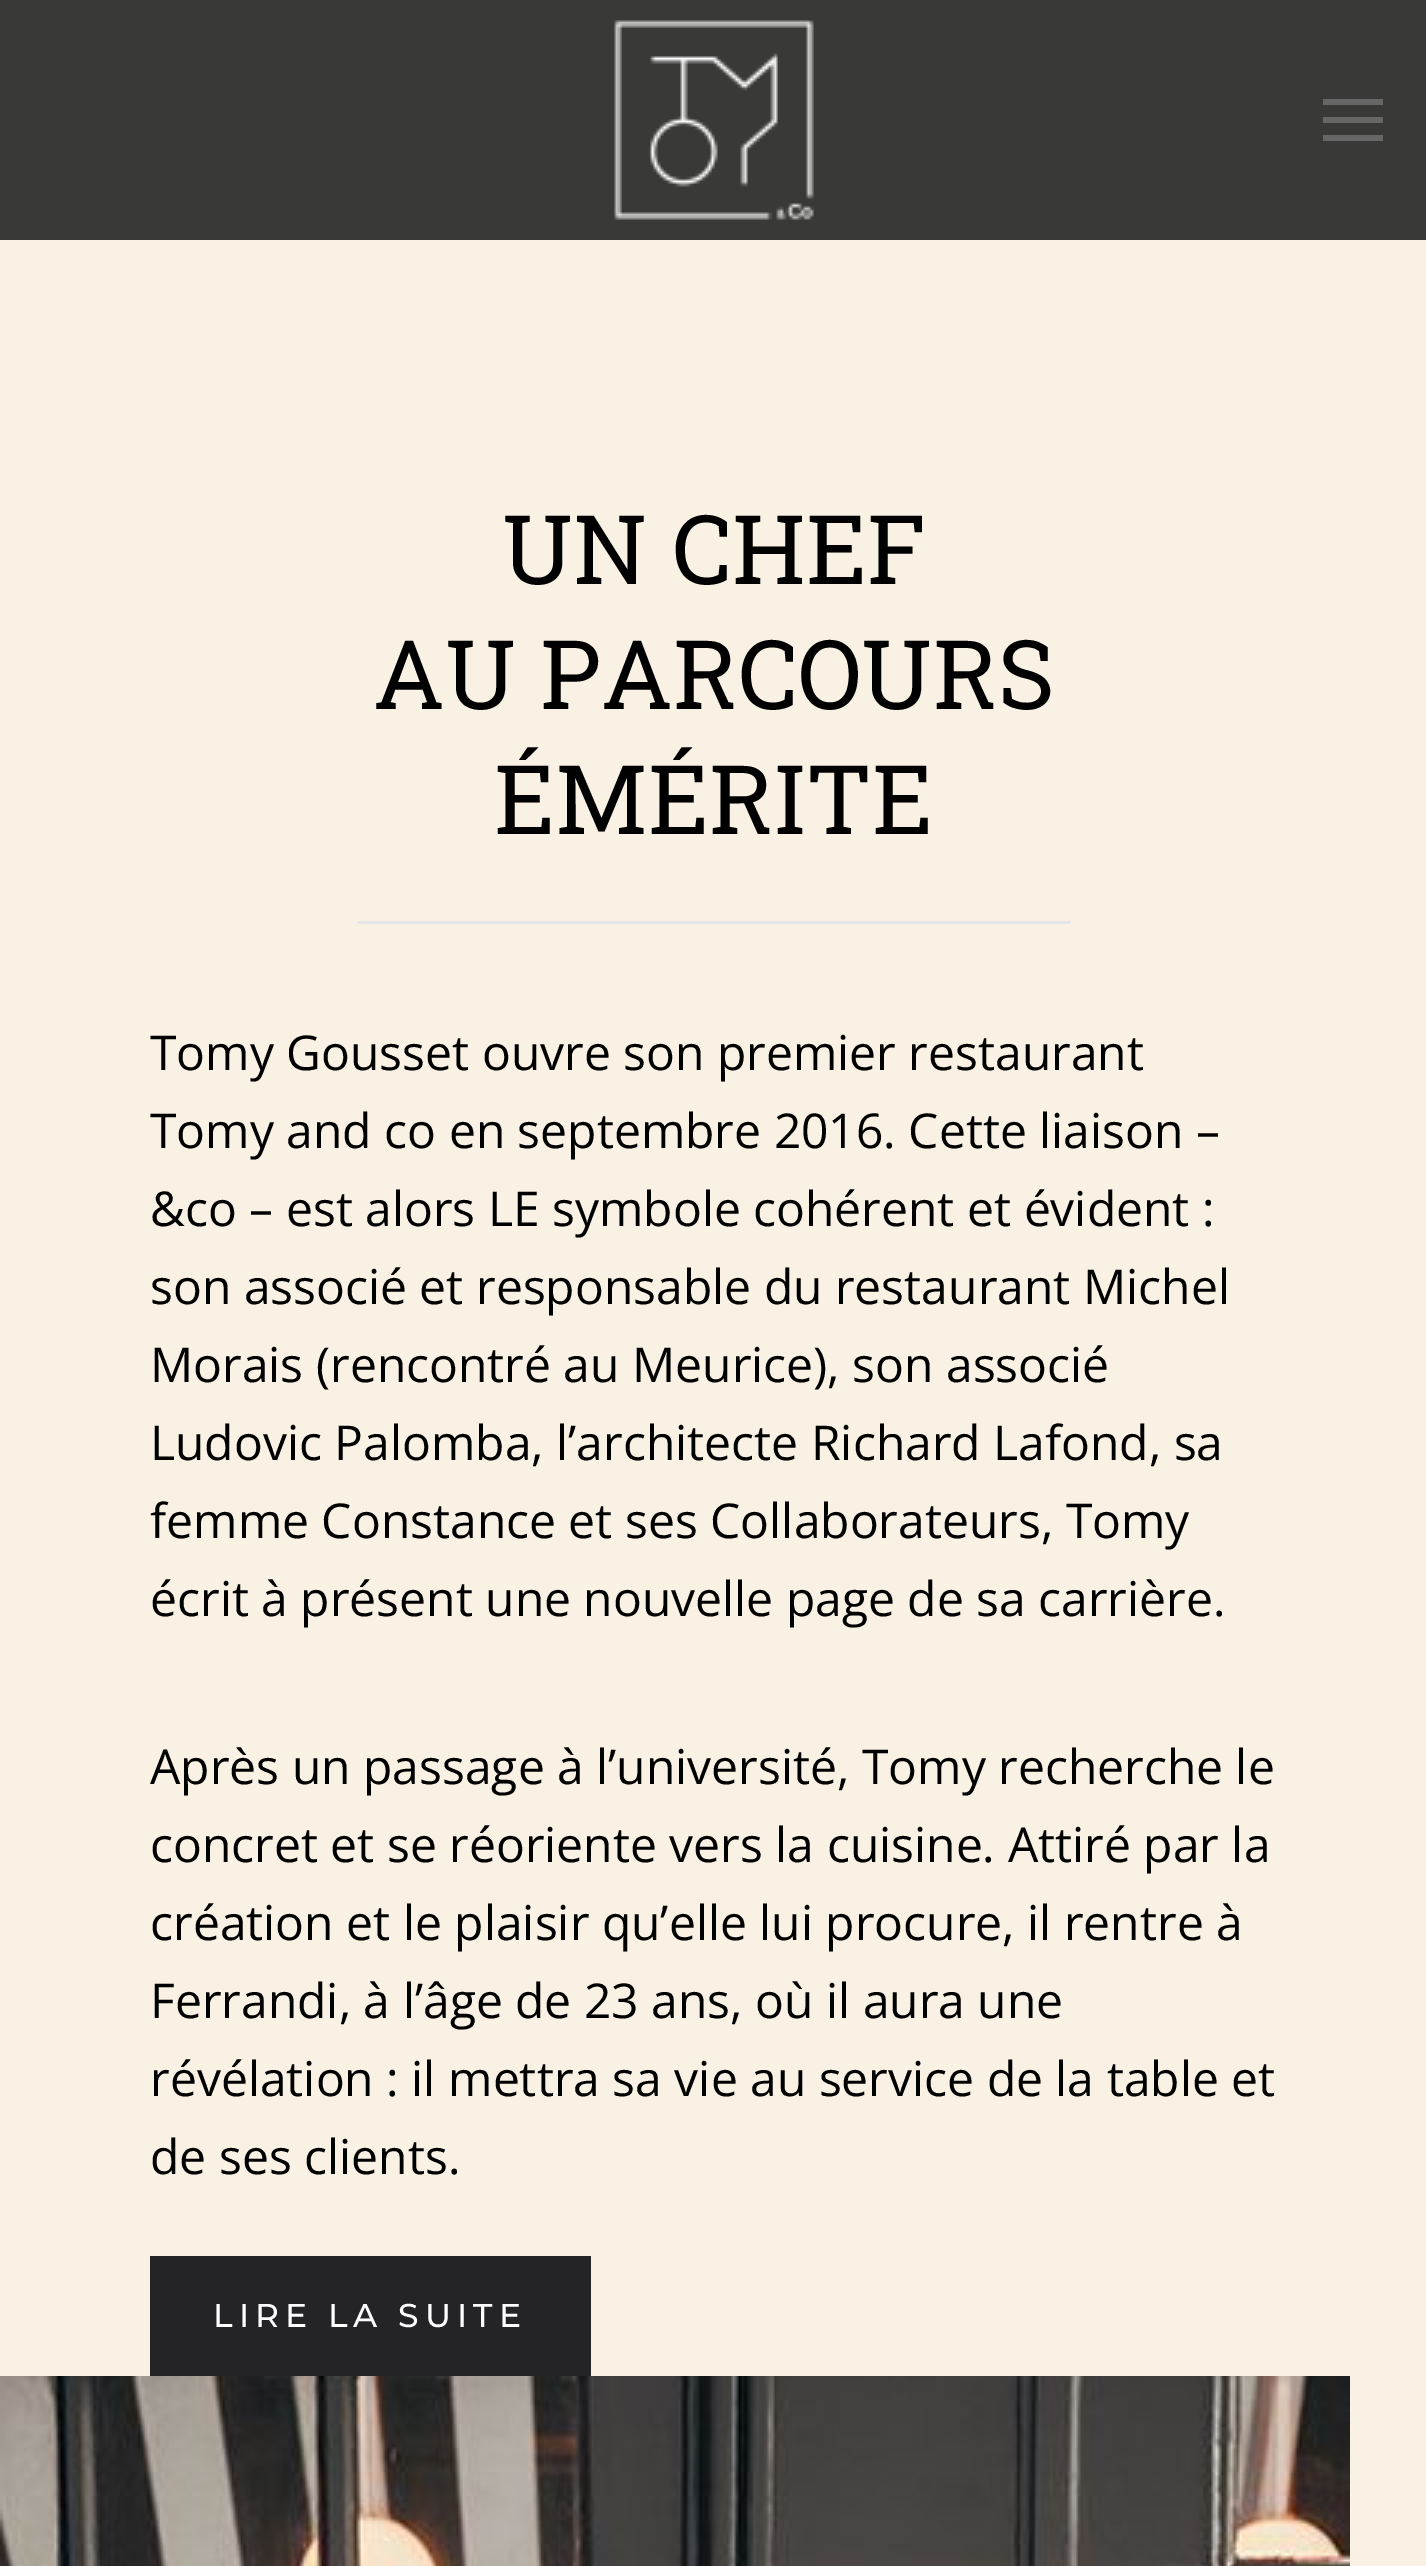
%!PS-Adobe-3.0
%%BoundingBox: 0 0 1426 2566
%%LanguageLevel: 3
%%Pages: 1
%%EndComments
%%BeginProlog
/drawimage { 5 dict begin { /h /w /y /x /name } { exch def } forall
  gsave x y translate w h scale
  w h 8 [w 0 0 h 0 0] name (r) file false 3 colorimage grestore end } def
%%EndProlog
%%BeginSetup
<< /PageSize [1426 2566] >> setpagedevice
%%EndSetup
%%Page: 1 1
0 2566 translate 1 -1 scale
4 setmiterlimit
0.224 0.224 0.22 setrgbcolor
0 0 1426 2566 rectfill
(images/1.raw) 614 20 200 200 drawimage
0.4 setgray
1323 99 60 6 rectfill
1323 117 60 6 rectfill
1323 135 60 6 rectfill
0.976 0.945 0.89 setrgbcolor
0 240 1426 2326 rectfill
0.898 0.898 0.906 setrgbcolor
357 921 714 3 rectfill
0.141 0.141 0.153 setrgbcolor
150 2256 441 120 rectfill
(images/2.raw) 0 2376 1350 190 drawimage
/RobotoSlab-Regular [96 0 0 -96 0 0] selectfont
0 setgray
502 584 moveto (UN CHEF) show
373 709 moveto (AU PARCOURS) show
494 834 moveto (ÉMÉRITE) show
/OpenSans-Regular [48 0 0 -48 0 0] selectfont
150 1070 moveto (Tomy Gousset ouvre son premier restaurant) show
150 1148 moveto (Tomy and co en septembre 2016. Cette liaison –) show
150 1226 moveto (&co – est alors LE symbole cohérent et évident :) show
150 1304 moveto (son associé et responsable du restaurant Michel) show
150 1382 moveto (Morais \(rencontré au Meurice\), son associé) show
150 1460 moveto (Ludovic Palomba, l’architecte Richard Lafond, sa) show
150 1538 moveto (femme Constance et ses Collaborateurs, Tomy) show
150 1616 moveto (écrit à présent une nouvelle page de sa carrière.) show
150 1784 moveto (Après un passage à l’université, Tomy recherche le) show
150 1862 moveto (concret et se réoriente vers la cuisine. Attiré par la) show
150 1940 moveto (création et le plaisir qu’elle lui procure, il rentre à) show
150 2018 moveto (Ferrandi, à l’âge de 23 ans, où il aura une) show
150 2096 moveto (révélation : il mettra sa vie au service de la table et) show
150 2174 moveto (de ses clients.) show
/Montserrat-Thin [33 0 0 -33 0 0] selectfont
1 setgray
213 2327 moveto 6 0 (LIRE LA SUITE) ashow
showpage
%%EOF
